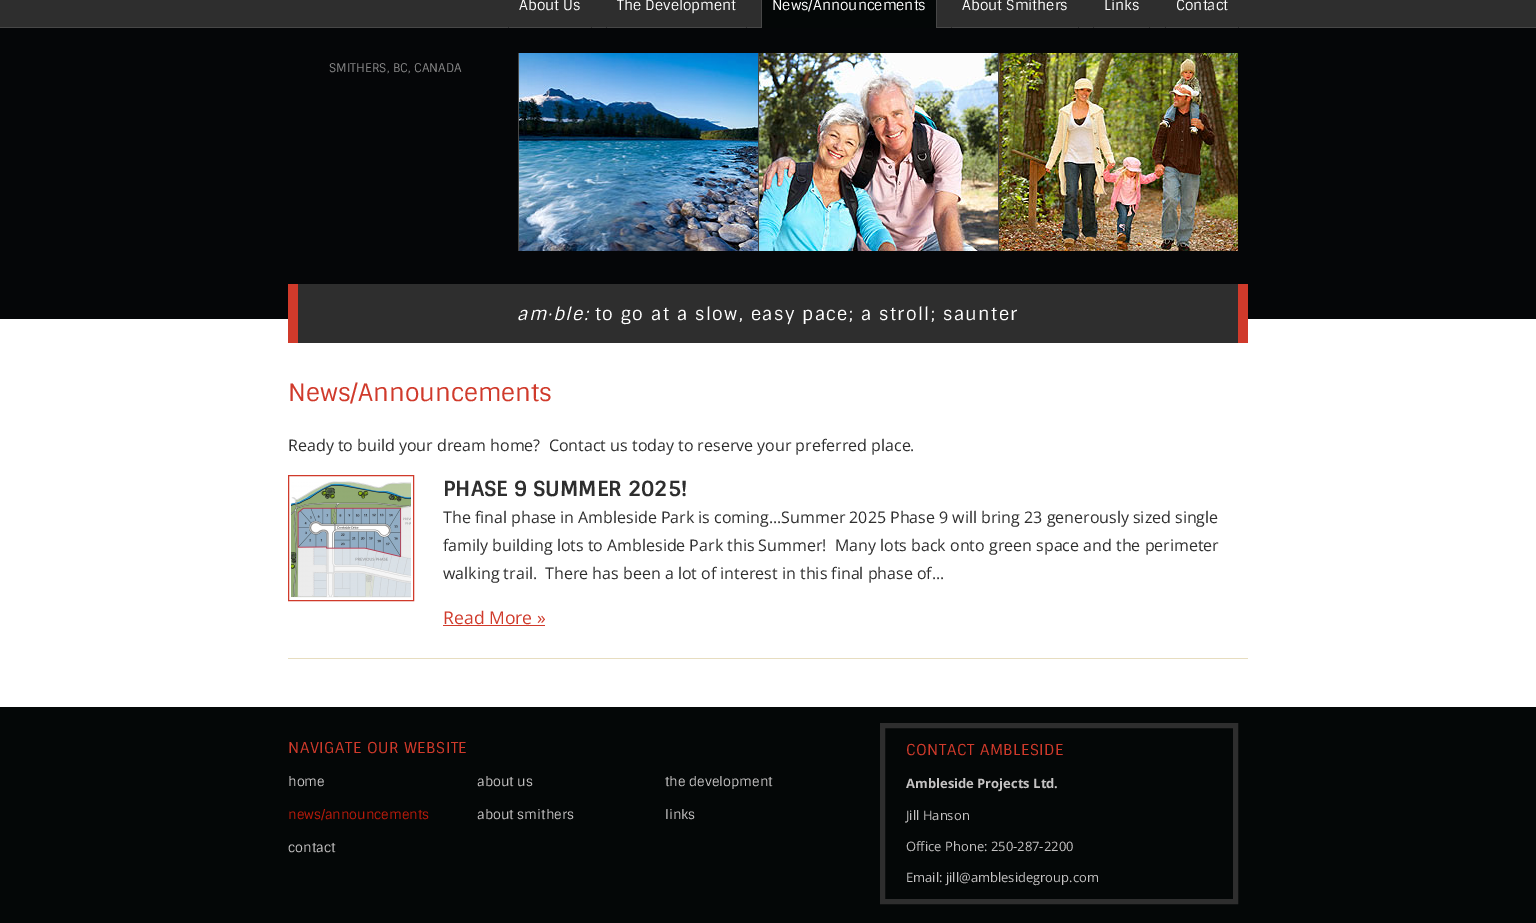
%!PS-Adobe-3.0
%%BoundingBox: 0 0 1536 923
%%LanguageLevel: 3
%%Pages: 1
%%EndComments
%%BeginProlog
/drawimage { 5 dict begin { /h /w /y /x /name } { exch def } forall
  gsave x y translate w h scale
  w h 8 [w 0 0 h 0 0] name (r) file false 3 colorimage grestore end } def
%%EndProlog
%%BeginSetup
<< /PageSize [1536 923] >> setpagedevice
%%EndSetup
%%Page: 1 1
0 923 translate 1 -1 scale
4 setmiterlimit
0.18 setgray
0 0 1536 923 rectfill
0.278 setgray
0 27 1536 1 rectfill
0.18 setgray
591 27 1 1 rectfill
508 27 1 1 rectfill
746 27 1 1 rectfill
606 27 1 1 rectfill
0.016 0.027 0.027 setrgbcolor
762 0 174 28 rectfill
0.278 setgray
newpath 766 -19 moveto 932 -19 lineto 935 -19 937 -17 937 -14 curveto 937 28 lineto 761 28 lineto 761 -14 lineto 761 -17 763 -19 766 -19 curveto closepath 766 -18 moveto 932 -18 lineto 934 -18 936 -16 936 -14 curveto 936 28 lineto 762 28 lineto 762 -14 lineto 762 -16 764 -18 766 -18 curveto closepath eofill
0.18 setgray
1078 27 1 1 rectfill
951 27 1 1 rectfill
1149 27 1 1 rectfill
1093 27 1 1 rectfill
1238 27 1 1 rectfill
1165 27 1 1 rectfill
0.02 0.024 0.031 setrgbcolor
0 28 1536 291 rectfill
0.278 setgray
518 53 1 198 rectfill
(images/1.raw) 519 53 239 198 drawimage
758 53 1 198 rectfill
(images/2.raw) 759 53 239 198 drawimage
998 53 1 198 rectfill
(images/3.raw) 999 53 239 198 drawimage
1 setgray
0 319 1536 388 rectfill
0.18 setgray
298 284 940 59 rectfill
0.816 0.227 0.169 setrgbcolor
1238 284 10 59 rectfill
288 284 10 59 rectfill
0.906 0.867 0.753 setrgbcolor
288 658 960 1 rectfill
0.816 0.227 0.169 setrgbcolor
288.5 475.5 125 125 rectstroke
(images/4.raw) 291 481 120 117 drawimage
443 625 102 1 rectfill
0.016 0.027 0.027 setrgbcolor
0 707 1536 216 rectfill
0.18 setgray
5 setlinewidth
882.5 725.5 353 176 rectstroke
/Sintony-Regular [14 0 0 -14 0 0] selectfont
1 setgray
519 10 moveto (About Us) show
617 10 moveto (The Development) show
772 10 moveto (News/Announcements) show
962 10 moveto (About Smithers) show
1104 10 moveto (Links) show
1176 10 moveto (Contact) show
/Sintony-Regular [12 0 0 -12 0 0] selectfont
0.533 setgray
329 72 moveto (SMITHERS, BC, CANADA) show
/Sintony-Italic [17.6 0 0 -17.6 0 0] selectfont
1 setgray
517 320 moveto 1.4 0 (am·ble:) ashow
/Sintony-Regular [17.6 0 0 -17.6 0 0] selectfont
595 320 moveto 1.4 0 (to go at a slow, easy pace; a stroll; saunter) ashow
/Sintony-Regular [24 0 0 -24 0 0] selectfont
0.816 0.227 0.169 setrgbcolor
288 401 moveto (News/Announcements) show
/OpenSans-Regular [16 0 0 -16 0 0] selectfont
0.18 setgray
288 451 moveto (Ready to build your dream home?  Contact us today to reserve your preferred place.) show
/Sintony-Bold [20.75 0 0 -20.75 0 0] selectfont
443 496 moveto (PHASE 9 SUMMER 2025!) show
/OpenSans-Regular [16 0 0 -16 0 0] selectfont
443 523 moveto (The final phase in Ambleside Park is coming...Summer 2025 Phase 9 will bring 23 generously sized single) show
443 551 moveto (family building lots to Ambleside Park this Summer!  Many lots back onto green space and the perimeter) show
443 579 moveto (walking trail.  There has been a lot of interest in this final phase of...) show
/OpenSans-Regular [17.6 0 0 -17.6 0 0] selectfont
0.816 0.227 0.169 setrgbcolor
443 624 moveto (Read More ») show
/Sintony-Regular [15 0 0 -15 0 0] selectfont
288 753 moveto 0.5 0 (NAVIGATE OUR WEBSITE) ashow
/Sintony-Regular [13 0 0 -13 0 0] selectfont
0.773 0.765 0.765 setrgbcolor
288 786 moveto (home) show
477 786 moveto (about us) show
665 786 moveto (the development) show
0.729 0.106 0.043 setrgbcolor
288 819 moveto (news/announcements) show
0.773 0.765 0.765 setrgbcolor
477 819 moveto (about smithers) show
665 819 moveto (links) show
288 852 moveto (contact) show
/Sintony-Regular [15 0 0 -15 0 0] selectfont
0.816 0.227 0.169 setrgbcolor
906 755 moveto 0.5 0 (CONTACT AMBLESIDE) ashow
/OpenSans-Bold [13 0 0 -13 0 0] selectfont
0.773 0.765 0.765 setrgbcolor
906 788 moveto (Ambleside Projects Ltd.) show
/OpenSans-Regular [13 0 0 -13 0 0] selectfont
906 820 moveto (Jill Hanson) show
906 851 moveto (Office Phone: 250-287-2200) show
906 882 moveto (Email: jill@amblesidegroup.com) show
showpage
%%EOF
